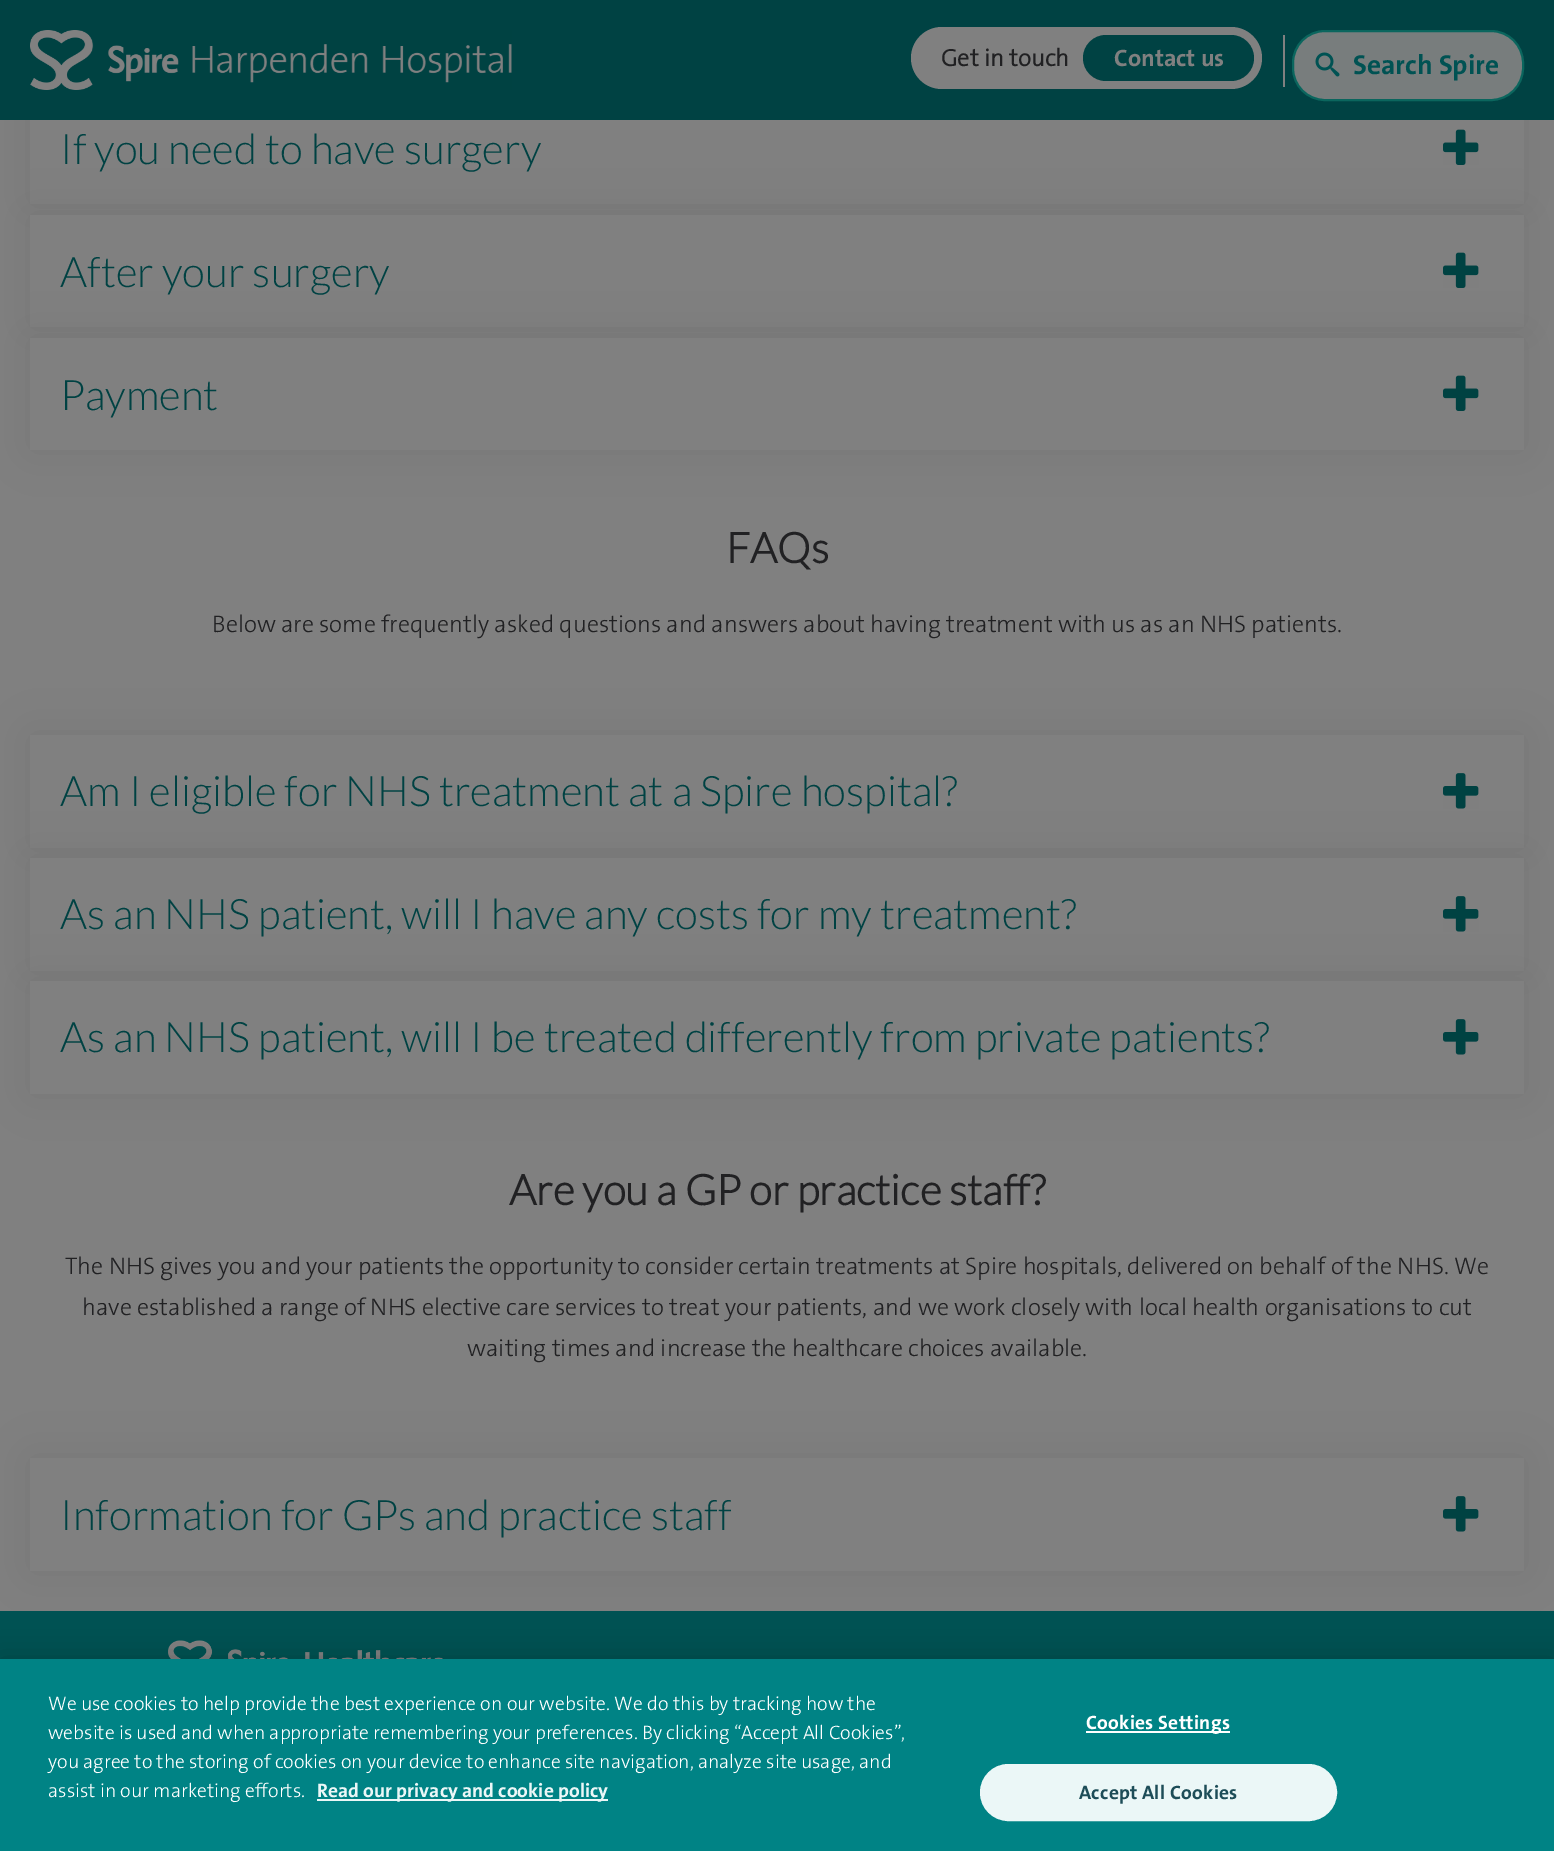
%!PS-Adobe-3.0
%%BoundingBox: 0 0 1554 1851
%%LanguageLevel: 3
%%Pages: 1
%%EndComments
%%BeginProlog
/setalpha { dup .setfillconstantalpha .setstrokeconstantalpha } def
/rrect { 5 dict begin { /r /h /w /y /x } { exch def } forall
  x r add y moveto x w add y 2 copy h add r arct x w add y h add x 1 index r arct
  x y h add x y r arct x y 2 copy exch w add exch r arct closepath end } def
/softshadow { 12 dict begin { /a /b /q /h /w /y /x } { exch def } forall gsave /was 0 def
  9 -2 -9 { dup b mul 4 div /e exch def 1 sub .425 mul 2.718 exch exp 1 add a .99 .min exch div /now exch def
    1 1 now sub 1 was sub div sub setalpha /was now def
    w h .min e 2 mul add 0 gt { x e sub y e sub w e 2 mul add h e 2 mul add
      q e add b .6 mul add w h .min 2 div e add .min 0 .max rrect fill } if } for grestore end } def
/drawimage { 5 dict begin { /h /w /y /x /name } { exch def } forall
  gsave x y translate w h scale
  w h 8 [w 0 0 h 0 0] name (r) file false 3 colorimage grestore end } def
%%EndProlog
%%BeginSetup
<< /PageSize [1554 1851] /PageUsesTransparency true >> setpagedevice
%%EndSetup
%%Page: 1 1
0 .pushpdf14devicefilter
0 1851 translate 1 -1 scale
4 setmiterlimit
0.502 setgray
0 0 1554 1851 rectfill
0 setgray
30 92 1494 112 0 21 0.08 softshadow
0 0.259 0.263 setrgbcolor
0 0 1554 120 rectfill
(images/1.raw) 30 30 482 60 drawimage
0.502 setgray
911 27 351 62 31 rrect fill
0 0.259 0.263 setrgbcolor
1083 35 171 46 23 rrect fill
0.502 setgray
1283 35 2 52 rectfill
0.471 0.49 0.49 setrgbcolor
1293 31 230 69 32 rrect gsave fill grestore
0.043 0.4 0.369 setrgbcolor
2 setlinewidth
stroke
(images/2.raw) 1315 52 25 25 drawimage
0.502 setgray
30 120 1494 84 rectfill
0 setgray
30 215 1494 112 0 21 0.08 softshadow
(images/3.raw) 1443 129 36 36 drawimage
0.502 setgray
30 215 1494 112 rectfill
0 setgray
30 338 1494 112 0 21 0.08 softshadow
(images/3.raw) 1443 252 36 36 drawimage
0.502 setgray
30 338 1494 112 rectfill
(images/4.raw) 1443 375 36 36 drawimage
0 setgray
30 735 1494 113 0 21 0.08 softshadow
0.502 setgray
30 735 1494 113 rectfill
0 setgray
30 858 1494 113 0 21 0.08 softshadow
(images/5.raw) 1443 773 36 36 drawimage
0.502 setgray
30 858 1494 113 rectfill
0 setgray
30 981 1494 113 0 21 0.08 softshadow
(images/5.raw) 1443 896 36 36 drawimage
0.502 setgray
30 981 1494 113 rectfill
(images/6.raw) 1443 1019 36 36 drawimage
0 0.322 0.325 setrgbcolor
0 1611 1554 48 rectfill
0 setgray
30 1458 1494 113 0 21 0.08 softshadow
0.502 setgray
30 1458 1494 113 rectfill
(images/6.raw) 1443 1496 36 36 drawimage
(images/7.raw) 168 1640 275 19 drawimage
0 setgray
0 1659 1554 192 0 13.5 0.2 softshadow
0 0.514 0.522 setrgbcolor
0 1659 1554 192 rectfill
0.922 0.969 0.969 setrgbcolor
317 1799 291 2 rectfill
1 setgray
1086 1731 144 2 rectfill
0.922 0.969 0.969 setrgbcolor
981 1765 355 55 27.5 rrect gsave fill grestore
stroke
/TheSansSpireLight-Bold [24 0 0 -24 0 0] selectfont
0.129 0.129 0.137 setrgbcolor
941 66 moveto (Get in touch) show
/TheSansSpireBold-Bold [24 0 0 -24 0 0] selectfont
0.502 setgray
1114 66 moveto (Contact us) show
/TheSansSpireBold-Bold [27.5 0 0 -27.5 0 0] selectfont
0 0.322 0.325 setrgbcolor
1353 74 moveto (Search Spire) show
/Lato-Light [42 0 0 -42 0 0] selectfont
0 0.259 0.263 setrgbcolor
60 164 moveto (If you need to have surgery) show
60 287 moveto (After your surgery) show
60 410 moveto (Payment) show
/Lato-Bold [42 0 0 -42 0 0] selectfont
0.129 0.129 0.137 setrgbcolor
726 563 moveto (FAQs) show
/TheSansSpireLight-Light [24 0 0 -24 0 0] selectfont
212 632 moveto (Below are some frequently asked questions and answers about having treatment with us as an NHS patients.) show
/Lato-Light [42 0 0 -42 0 0] selectfont
0 0.259 0.263 setrgbcolor
60 806 moveto (Am I eligible for NHS treatment at a Spire hospital?) show
60 929 moveto (As an NHS patient, will I have any costs for my treatment?) show
60 1052 moveto (As an NHS patient, will I be treated differently from private patients?) show
/Lato-Bold [42 0 0 -42 0 0] selectfont
0.129 0.129 0.137 setrgbcolor
509 1205 moveto (Are you a GP or practice staff?) show
/TheSansSpireLight-Light [24 0 0 -24 0 0] selectfont
65 1274 moveto (The NHS gives you and your patients the opportunity to consider certain treatments at Spire hospitals, delivered on behalf of the NHS. We) show
82 1315 moveto (have established a range of NHS elective care services to treat your patients, and we work closely with local health organisations to cut) show
467 1356 moveto (waiting times and increase the healthcare choices available.) show
/Lato-Light [42 0 0 -42 0 0] selectfont
0 0.259 0.263 setrgbcolor
60 1530 moveto (Information for GPs and practice staff) show
/TheSansSpireLight-Light [19.5 0 0 -19.5 0 0] selectfont
1 setgray
48 1710 moveto (We use cookies to help provide the best experience on our website. We do this by tracking how the) show
48 1739 moveto (website is used and when appropriate remembering your preferences. By clicking “Accept All Cookies”,) show
48 1768 moveto (you agree to the storing of cookies on your device to enhance site navigation, analyze site usage, and) show
48 1797 moveto (assist in our marketing efforts.) show
/TheSansSpireBold-Bold [19.5 0 0 -19.5 0 0] selectfont
0.922 0.969 0.969 setrgbcolor
317 1797 moveto (Read our privacy and cookie policy) show
1 setgray
1086 1729 moveto 0.25 0 (Cookies Settings) ashow
0.114 0.302 0.345 setrgbcolor
1079 1799 moveto 0.25 0 (Accept All Cookies) ashow
.poppdf14devicefilter showpage
%%EOF
